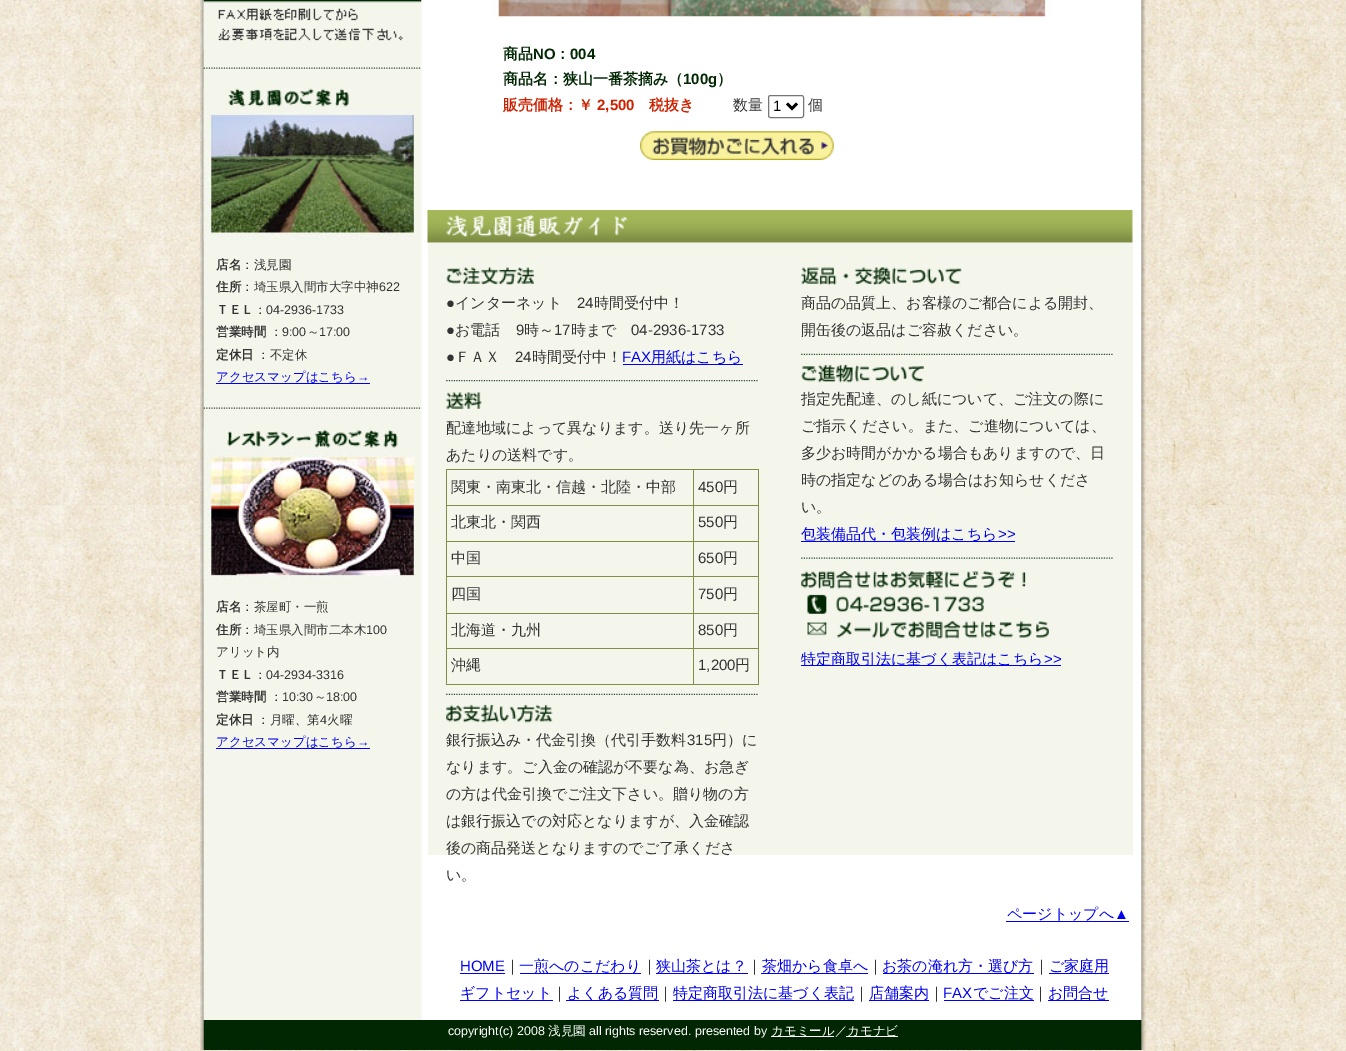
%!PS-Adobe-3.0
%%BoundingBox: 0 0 1346 1051
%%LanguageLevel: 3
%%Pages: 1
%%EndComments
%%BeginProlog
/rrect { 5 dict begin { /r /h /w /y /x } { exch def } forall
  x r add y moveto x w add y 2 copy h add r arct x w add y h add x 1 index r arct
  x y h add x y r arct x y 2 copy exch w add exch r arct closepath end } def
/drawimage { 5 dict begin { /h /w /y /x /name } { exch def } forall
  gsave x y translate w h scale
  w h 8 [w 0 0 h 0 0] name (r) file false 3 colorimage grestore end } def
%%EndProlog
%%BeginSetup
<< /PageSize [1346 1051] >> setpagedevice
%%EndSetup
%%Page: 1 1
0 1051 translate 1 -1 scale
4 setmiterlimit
1 setgray
0 0 1346 1051 rectfill
(images/1.raw) 0 0 1346 1051 drawimage
(images/2.raw) 200 0 947 1020 drawimage
(images/3.raw) 203 0 219 49 drawimage
(images/4.raw) 203 67 218 2 drawimage
(images/5.raw) 203 87 146 22 drawimage
(images/6.raw) 203 109 211 133 drawimage
0 0 0.933 setrgbcolor
216 383 154 1 rectfill
(images/7.raw) 203 407 218 2 drawimage
(images/8.raw) 203 427 195 25 drawimage
(images/9.raw) 203 451 211 133 drawimage
216 748 154 1 rectfill
(images/10.raw) 493 0 559 17 drawimage
0.463 setgray
768.5 95.5 35 22 2 rrect stroke
0 setgray
2.5 setlinewidth
newpath 787 103.5 moveto 792 108.5 lineto 797 103.5 lineto stroke
(images/11.raw) 640 131 194 29 drawimage
(images/12.raw) 427 210 706 33 drawimage
0.957 0.965 0.925 setrgbcolor
428 243 705 612 rectfill
(images/13.raw) 446 267 88 18 drawimage
0 0 0.933 setrgbcolor
623 364 120 1 rectfill
(images/14.raw) 446 380 313 2 drawimage
(images/15.raw) 446 392 36 18 drawimage
0.498 0.561 0.271 setrgbcolor
693 469 66 1 rectfill
693 505 66 1 rectfill
693 541 66 1 rectfill
693 576 66 1 rectfill
693 613 66 1 rectfill
693 648 66 1 rectfill
758 648 1 37 rectfill
693 684 66 1 rectfill
693 648 1 37 rectfill
446 648 248 1 rectfill
693 613 1 36 rectfill
446 613 248 1 rectfill
693 576 1 38 rectfill
446 576 248 1 rectfill
693 541 1 37 rectfill
446 541 248 1 rectfill
693 505 1 38 rectfill
446 505 248 1 rectfill
693 469 1 37 rectfill
446 469 248 1 rectfill
446 684 248 1 rectfill
446 648 1 37 rectfill
446 613 1 36 rectfill
446 576 1 38 rectfill
446 541 1 37 rectfill
446 505 1 38 rectfill
446 469 1 37 rectfill
758 613 1 36 rectfill
758 576 1 38 rectfill
758 541 1 37 rectfill
758 505 1 38 rectfill
758 469 1 37 rectfill
(images/16.raw) 446 693 313 2 drawimage
(images/17.raw) 446 704 107 19 drawimage
(images/18.raw) 801 267 161 18 drawimage
(images/19.raw) 801 353 313 2 drawimage
(images/20.raw) 801 364 123 19 drawimage
0 0 0.933 setrgbcolor
801 541 214 1 rectfill
(images/21.raw) 801 557 313 2 drawimage
(images/22.raw) 801 571 248 68 drawimage
801 665 260 1 rectfill
1006 921 123 1 rectfill
460 973 45 1 rectfill
520 973 121 1 rectfill
656 973 92 1 rectfill
761 973 107 1 rectfill
883 973 151 1 rectfill
1049 973 60 1 rectfill
460 1000 93 1 rectfill
566 1000 93 1 rectfill
673 1000 181 1 rectfill
869 1000 60 1 rectfill
944 1000 90 1 rectfill
1048 1000 61 1 rectfill
(images/23.raw) 200 1020 947 30 drawimage
1 setgray
771 1036 63 1 rectfill
846 1036 52 1 rectfill
/WenQuanYiZenHei-Bold [12.5 0 0 -12.5 0 0] selectfont
0.2 setgray
216 269 moveto (店名) show
/WenQuanYiZenHei-Medium [12.5 0 0 -12.5 0 0] selectfont
241 269 moveto (：浅見園) show
/WenQuanYiZenHei-Bold [12.5 0 0 -12.5 0 0] selectfont
216 291 moveto (住所) show
/WenQuanYiZenHei-Medium [12.5 0 0 -12.5 0 0] selectfont
241 291 moveto (：埼玉県入間市大字中神) show
/LiberationSans-Regular [12.5 0 0 -12.5 0 0] selectfont
379 291 moveto (622) show
/WenQuanYiZenHei-Bold [12.5 0 0 -12.5 0 0] selectfont
216 314 moveto (ＴＥＬ) show
/WenQuanYiZenHei-Medium [12.5 0 0 -12.5 0 0] selectfont
254 314 moveto (：) show
/LiberationSans-Regular [12.5 0 0 -12.5 0 0] selectfont
266 314 moveto (04-2936-1733) show
/WenQuanYiZenHei-Bold [12.5 0 0 -12.5 0 0] selectfont
216 336 moveto (営業時間) show
/WenQuanYiZenHei-Medium [12.5 0 0 -12.5 0 0] selectfont
270 336 moveto (：) show
/LiberationSans-Regular [12.5 0 0 -12.5 0 0] selectfont
282 336 moveto (9:00) show
/WenQuanYiZenHei-Medium [12.5 0 0 -12.5 0 0] selectfont
307 336 moveto (～) show
/LiberationSans-Regular [12.5 0 0 -12.5 0 0] selectfont
319 336 moveto (17:00) show
/WenQuanYiZenHei-Bold [12.5 0 0 -12.5 0 0] selectfont
216 359 moveto (定休日) show
/WenQuanYiZenHei-Medium [12.5 0 0 -12.5 0 0] selectfont
257 359 moveto (：不定休) show
0 0 0.933 setrgbcolor
216 381 moveto (アクセスマップはこちら) show
/LiberationSans-Regular [12.5 0 0 -12.5 0 0] selectfont
357 381 moveto (→) show
/WenQuanYiZenHei-Bold [12.5 0 0 -12.5 0 0] selectfont
0.2 setgray
216 611 moveto (店名) show
/WenQuanYiZenHei-Medium [12.5 0 0 -12.5 0 0] selectfont
241 611 moveto (：茶屋町・一煎) show
/WenQuanYiZenHei-Bold [12.5 0 0 -12.5 0 0] selectfont
216 634 moveto (住所) show
/WenQuanYiZenHei-Medium [12.5 0 0 -12.5 0 0] selectfont
241 634 moveto (：埼玉県入間市二本木) show
/LiberationSans-Regular [12.5 0 0 -12.5 0 0] selectfont
366 634 moveto (100) show
/WenQuanYiZenHei-Medium [12.5 0 0 -12.5 0 0] selectfont
216 656 moveto (アリット内) show
/WenQuanYiZenHei-Bold [12.5 0 0 -12.5 0 0] selectfont
216 679 moveto (ＴＥＬ) show
/WenQuanYiZenHei-Medium [12.5 0 0 -12.5 0 0] selectfont
254 679 moveto (：) show
/LiberationSans-Regular [12.5 0 0 -12.5 0 0] selectfont
266 679 moveto (04-2934-3316) show
/WenQuanYiZenHei-Bold [12.5 0 0 -12.5 0 0] selectfont
216 701 moveto (営業時間) show
/WenQuanYiZenHei-Medium [12.5 0 0 -12.5 0 0] selectfont
270 701 moveto (：) show
/LiberationSans-Regular [12.5 0 0 -12.5 0 0] selectfont
282 701 moveto (10:30) show
/WenQuanYiZenHei-Medium [12.5 0 0 -12.5 0 0] selectfont
314 701 moveto (～) show
/LiberationSans-Regular [12.5 0 0 -12.5 0 0] selectfont
326 701 moveto (18:00) show
/WenQuanYiZenHei-Bold [12.5 0 0 -12.5 0 0] selectfont
216 724 moveto (定休日) show
/WenQuanYiZenHei-Medium [12.5 0 0 -12.5 0 0] selectfont
257 724 moveto (：月曜、第) show
/LiberationSans-Regular [12.5 0 0 -12.5 0 0] selectfont
320 724 moveto (4) show
/WenQuanYiZenHei-Medium [12.5 0 0 -12.5 0 0] selectfont
327 724 moveto (火曜) show
0 0 0.933 setrgbcolor
216 746 moveto (アクセスマップはこちら) show
/LiberationSans-Regular [12.5 0 0 -12.5 0 0] selectfont
357 746 moveto (→) show
/WenQuanYiZenHei-Bold [15 0 0 -15 0 0] selectfont
0.004 0.153 0.008 setrgbcolor
503 59 moveto (商品) show
/LiberationSans-Bold [15 0 0 -15 0 0] selectfont
533 59 moveto (NO) show
/WenQuanYiZenHei-Bold [15 0 0 -15 0 0] selectfont
555 59 moveto (：) show
/LiberationSans-Bold [15 0 0 -15 0 0] selectfont
570 59 moveto (004) show
/WenQuanYiZenHei-Bold [15 0 0 -15 0 0] selectfont
503 84 moveto (商品名：狭山一番茶摘み（) show
/LiberationSans-Bold [15 0 0 -15 0 0] selectfont
683 84 moveto (100g) show
/WenQuanYiZenHei-Bold [15 0 0 -15 0 0] selectfont
717 84 moveto (）) show
0.804 0.129 0 setrgbcolor
503 110 moveto (販売価格：￥) show
/LiberationSans-Bold [15 0 0 -15 0 0] selectfont
597 110 moveto (2,500) show
/WenQuanYiZenHei-Bold [15 0 0 -15 0 0] selectfont
649 110 moveto (税抜き) show
/WenQuanYiZenHei-Medium [15 0 0 -15 0 0] selectfont
0.2 setgray
733 110 moveto (数量) show
/LiberationSans-Regular [15 0 0 -15 0 0] selectfont
0 setgray
773 111 moveto (1) show
/WenQuanYiZenHei-Medium [15 0 0 -15 0 0] selectfont
0.2 setgray
808 110 moveto (個) show
/LiberationSans-Regular [15 0 0 -15 0 0] selectfont
446 308 moveto (●) show
/WenQuanYiZenHei-Medium [15 0 0 -15 0 0] selectfont
455 308 moveto (インターネット) show
/LiberationSans-Regular [15 0 0 -15 0 0] selectfont
577 308 moveto (24) show
/WenQuanYiZenHei-Medium [15 0 0 -15 0 0] selectfont
594 308 moveto (時間受付中！) show
/LiberationSans-Regular [15 0 0 -15 0 0] selectfont
446 335 moveto (●) show
/WenQuanYiZenHei-Medium [15 0 0 -15 0 0] selectfont
455 335 moveto (お電話) show
/LiberationSans-Regular [15 0 0 -15 0 0] selectfont
516 335 moveto (9) show
/WenQuanYiZenHei-Medium [15 0 0 -15 0 0] selectfont
524 335 moveto (時～) show
/LiberationSans-Regular [15 0 0 -15 0 0] selectfont
554 335 moveto (17) show
/WenQuanYiZenHei-Medium [15 0 0 -15 0 0] selectfont
571 335 moveto (時まで) show
/LiberationSans-Regular [15 0 0 -15 0 0] selectfont
631 335 moveto (04-2936-1733) show
446 362 moveto (●) show
/WenQuanYiZenHei-Medium [15 0 0 -15 0 0] selectfont
455 362 moveto (ＦＡＸ) show
/LiberationSans-Regular [15 0 0 -15 0 0] selectfont
515 362 moveto (24) show
/WenQuanYiZenHei-Medium [15 0 0 -15 0 0] selectfont
532 362 moveto (時間受付中！) show
/LiberationSans-Regular [15 0 0 -15 0 0] selectfont
0 0 0.933 setrgbcolor
622 362 moveto (FAX) show
/WenQuanYiZenHei-Medium [15 0 0 -15 0 0] selectfont
651 362 moveto (用紙はこちら) show
0.2 setgray
446 433 moveto (配達地域によって異なります。送り先一ヶ所) show
446 460 moveto (あたりの送料です。) show
451 492 moveto (関東・南東北・信越・北陸・中部) show
/LiberationSans-Regular [15 0 0 -15 0 0] selectfont
698 492 moveto (450) show
/WenQuanYiZenHei-Medium [15 0 0 -15 0 0] selectfont
723 492 moveto (円) show
451 527 moveto (北東北・関西) show
/LiberationSans-Regular [15 0 0 -15 0 0] selectfont
698 527 moveto (550) show
/WenQuanYiZenHei-Medium [15 0 0 -15 0 0] selectfont
723 527 moveto (円) show
451 563 moveto (中国) show
/LiberationSans-Regular [15 0 0 -15 0 0] selectfont
698 563 moveto (650) show
/WenQuanYiZenHei-Medium [15 0 0 -15 0 0] selectfont
723 563 moveto (円) show
451 599 moveto (四国) show
/LiberationSans-Regular [15 0 0 -15 0 0] selectfont
698 599 moveto (750) show
/WenQuanYiZenHei-Medium [15 0 0 -15 0 0] selectfont
723 599 moveto (円) show
451 635 moveto (北海道・九州) show
/LiberationSans-Regular [15 0 0 -15 0 0] selectfont
698 635 moveto (850) show
/WenQuanYiZenHei-Medium [15 0 0 -15 0 0] selectfont
723 635 moveto (円) show
451 670 moveto (沖縄) show
/LiberationSans-Regular [15 0 0 -15 0 0] selectfont
698 670 moveto (1,200) show
/WenQuanYiZenHei-Medium [15 0 0 -15 0 0] selectfont
735 670 moveto (円) show
446 745 moveto (銀行振込み・代金引換（代引手数料) show
/LiberationSans-Regular [15 0 0 -15 0 0] selectfont
687 745 moveto (315) show
/WenQuanYiZenHei-Medium [15 0 0 -15 0 0] selectfont
712 745 moveto (円）に) show
446 772 moveto (なります。ご入金の確認が不要な為、お急ぎ) show
446 799 moveto (の方は代金引換でご注文下さい。贈り物の方) show
446 826 moveto (は銀行振込での対応となりますが、入金確認) show
446 853 moveto (後の商品発送となりますのでご了承くださ) show
446 880 moveto (い。) show
801 308 moveto (商品の品質上、お客様のご都合による開封、) show
801 335 moveto (開缶後の返品はご容赦ください。) show
801 404 moveto (指定先配達、のし紙について、ご注文の際に) show
801 431 moveto (ご指示ください。また、ご進物については、) show
801 458 moveto (多少お時間がかかる場合もありますので、日) show
801 485 moveto (時の指定などのある場合はお知らせくださ) show
801 512 moveto (い。) show
0 0 0.933 setrgbcolor
801 539 moveto (包装備品代・包装例はこちら) show
/LiberationSans-Regular [15 0 0 -15 0 0] selectfont
998 539 moveto (>>) show
/WenQuanYiZenHei-Medium [15 0 0 -15 0 0] selectfont
801 664 moveto (特定商取引法に基づく表記はこちら) show
/LiberationSans-Regular [15 0 0 -15 0 0] selectfont
1044 664 moveto (>>) show
/WenQuanYiZenHei-Medium [15 0 0 -15 0 0] selectfont
1007 919 moveto (ページトップへ) show
/LiberationSans-Regular [15 0 0 -15 0 0] selectfont
1114 919 moveto (▲) show
460 971 moveto (HOME) show
/WenQuanYiZenHei-Medium [15 0 0 -15 0 0] selectfont
0.2 setgray
505 971 moveto (｜) show
0 0 0.933 setrgbcolor
519 971 moveto (一煎へのこだわり) show
0.2 setgray
642 971 moveto (｜) show
0 0 0.933 setrgbcolor
656 971 moveto (狭山茶とは？) show
0.2 setgray
747 971 moveto (｜) show
0 0 0.933 setrgbcolor
762 971 moveto (茶畑から食卓へ) show
0.2 setgray
868 971 moveto (｜) show
0 0 0.933 setrgbcolor
882 971 moveto (お茶の淹れ方・選び方) show
0.2 setgray
1034 971 moveto (｜) show
0 0 0.933 setrgbcolor
1049 971 moveto (ご家庭用) show
460 998 moveto (ギフトセット) show
0.2 setgray
552 998 moveto (｜) show
0 0 0.933 setrgbcolor
567 998 moveto (よくある質問) show
0.2 setgray
658 998 moveto (｜) show
0 0 0.933 setrgbcolor
673 998 moveto (特定商取引法に基づく表記) show
0.2 setgray
854 998 moveto (｜) show
0 0 0.933 setrgbcolor
869 998 moveto (店舗案内) show
0.2 setgray
929 998 moveto (｜) show
/LiberationSans-Regular [15 0 0 -15 0 0] selectfont
0 0 0.933 setrgbcolor
943 998 moveto (FAX) show
/WenQuanYiZenHei-Medium [15 0 0 -15 0 0] selectfont
973 998 moveto (でご注文) show
0.2 setgray
1033 998 moveto (｜) show
0 0 0.933 setrgbcolor
1048 998 moveto (お問合せ) show
/LiberationSans-Regular [12.5 0 0 -12.5 0 0] selectfont
1 setgray
448 1035 moveto (copyright\(c\) 2008) show
/WenQuanYiZenHei-Medium [12.5 0 0 -12.5 0 0] selectfont
548 1035 moveto (浅見園) show
/LiberationSans-Regular [12.5 0 0 -12.5 0 0] selectfont
589 1035 moveto (all rights reserved. presented by) show
/WenQuanYiZenHei-Medium [12.5 0 0 -12.5 0 0] selectfont
771 1035 moveto (カモミール／) show
847 1035 moveto (カモナビ) show
showpage
%%EOF
